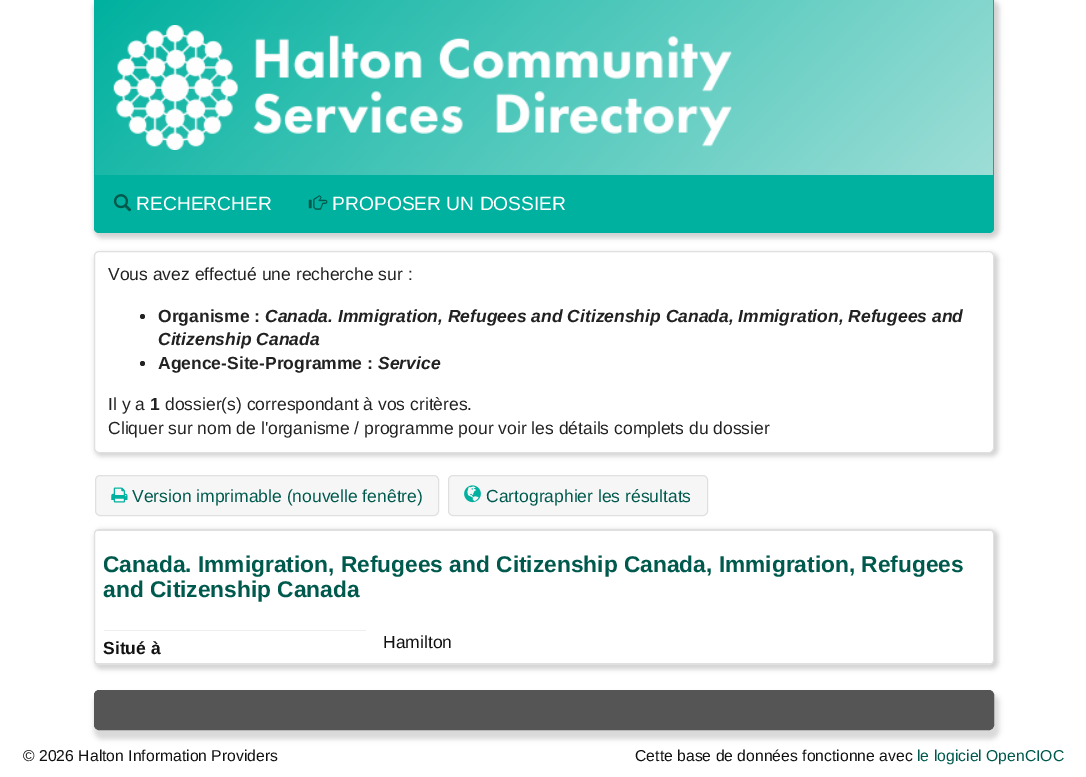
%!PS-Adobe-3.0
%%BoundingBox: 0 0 1086 777
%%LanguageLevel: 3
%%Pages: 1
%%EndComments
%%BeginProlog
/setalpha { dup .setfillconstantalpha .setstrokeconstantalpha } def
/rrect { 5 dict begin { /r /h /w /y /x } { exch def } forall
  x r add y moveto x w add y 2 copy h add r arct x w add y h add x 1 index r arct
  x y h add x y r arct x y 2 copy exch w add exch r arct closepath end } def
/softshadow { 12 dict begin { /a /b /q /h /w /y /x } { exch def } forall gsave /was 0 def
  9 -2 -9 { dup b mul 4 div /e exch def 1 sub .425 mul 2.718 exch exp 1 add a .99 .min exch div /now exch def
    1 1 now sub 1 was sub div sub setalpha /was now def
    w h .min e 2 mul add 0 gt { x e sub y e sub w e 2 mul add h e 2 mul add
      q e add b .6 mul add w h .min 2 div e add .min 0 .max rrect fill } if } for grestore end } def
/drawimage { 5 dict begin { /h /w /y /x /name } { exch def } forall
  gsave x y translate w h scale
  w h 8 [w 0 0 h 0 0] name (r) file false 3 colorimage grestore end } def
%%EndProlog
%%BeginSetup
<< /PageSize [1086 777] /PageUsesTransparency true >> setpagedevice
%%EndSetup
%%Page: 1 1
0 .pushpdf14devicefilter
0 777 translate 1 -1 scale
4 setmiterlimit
1 setgray
0 0 1086 777 rectfill
0.4 setgray
94 0 905 238 8 2.5 0.3 softshadow
0 0.694 0.624 setrgbcolor
newpath 94 0 moveto 994 0 lineto 994 228 lineto 994 231 992 233 989 233 curveto 99 233 lineto 96 233 94 231 94 228 curveto closepath fill
newpath 94 0 moveto 994 0 lineto 994 228 lineto 994 230 992 232 989 232 curveto 99 232 lineto 96 232 94 230 94 228 curveto closepath 95 0 moveto 992 0 lineto 992 228 lineto 992 230 991 231 989 231 curveto 99 231 lineto 97 231 95 230 95 228 curveto closepath eofill
gsave newpath 95 0 moveto 993 0 lineto 993 175 lineto 95 175 lineto closepath clip newpath
<< /ShadingType 2 /ColorSpace /DeviceRGB /Coords [276 -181 812 356] /Extend [true true] /Function << /FunctionType 2 /Domain [0 1] /C0 [0 0.694 0.624] /C1 [0.62 0.871 0.843] /N 1 >> >> shfill grestore
(images/1.raw) 113 25 619 125 drawimage
(images/2.raw) 113 194 19 18 drawimage
(images/3.raw) 308 195 20 15 drawimage
0.4 setgray
95 253 903 203 6 2.5 0.3 softshadow
1 setgray
94.5 251.5 899 201 4.5 rrect gsave fill grestore
0.878 setgray
stroke
0.133 setgray
newpath 142.5 316.5 2.5 0 360 arc closepath fill
newpath 142.5 363.5 2.5 0 360 arc closepath fill
0.965 setgray
95.5 475.5 343 40 4.5 rrect gsave fill grestore
0.878 setgray
stroke
(images/4.raw) 111 487 17 16 drawimage
0.965 setgray
448.5 475.5 259 40 4.5 rrect gsave fill grestore
0.878 setgray
stroke
(images/5.raw) 464 485 17 18 drawimage
0.4 setgray
95 530 903 139 6 2.5 0.3 softshadow
1 setgray
94.5 529.5 899 135 4.5 rrect gsave fill grestore
0.878 setgray
stroke
95 530 898 1 rectfill
95 663 898 1 rectfill
0.933 setgray
104 630 262 1 rectfill
0.4 setgray
94 694 905 45 8 2.5 0.25 softshadow
0.333 setgray
94.5 690.5 899 39 4.5 rrect gsave fill grestore
stroke
/LiberationSans-Regular [19.25 0 0 -19.25 0 0] selectfont
1 setgray
136 210 moveto (RECHERCHER) show
332 210 moveto (PROPOSER UN DOSSIER) show
/LiberationSans-Regular [17.5 0 0 -17.5 0 0] selectfont
0.133 setgray
108 280 moveto (Vous avez effectué une recherche sur :) show
/LiberationSans-Bold [17.5 0 0 -17.5 0 0] selectfont
158 322 moveto (Organisme :) show
/LiberationSans-BoldItalic [17.5 0 0 -17.5 0 0] selectfont
265 322 moveto (Canada. Immigration, Refugees and Citizenship Canada, Immigration, Refugees and) show
158 345 moveto (Citizenship Canada) show
/LiberationSans-Bold [17.5 0 0 -17.5 0 0] selectfont
158 369 moveto (Agence-Site-Programme :) show
/LiberationSans-BoldItalic [17.5 0 0 -17.5 0 0] selectfont
378 369 moveto (Service) show
/LiberationSans-Regular [17.5 0 0 -17.5 0 0] selectfont
108 410 moveto (Il y a) show
/LiberationSans-Bold [17.5 0 0 -17.5 0 0] selectfont
150 410 moveto (1) show
/LiberationSans-Regular [17.5 0 0 -17.5 0 0] selectfont
165 410 moveto (dossier\(s\) correspondant à vos critères.) show
108 434 moveto (Cliquer sur nom de l'organisme / programme pour voir les détails complets du dossier) show
0 0.349 0.302 setrgbcolor
132 502 moveto (Version imprimable \(nouvelle fenêtre\)) show
486 502 moveto (Cartographier les résultats) show
/LiberationSans-Bold [22.75 0 0 -22.75 0 0] selectfont
103 572 moveto (Canada. Immigration, Refugees and Citizenship Canada, Immigration, Refugees) show
103 597 moveto (and Citizenship Canada) show
/LiberationSans-Bold [17.5 0 0 -17.5 0 0] selectfont
0.067 setgray
103 654 moveto (Situé à) show
/LiberationSans-Regular [17.5 0 0 -17.5 0 0] selectfont
383 648 moveto (Hamilton) show
/LiberationSans-Regular [15.75 0 0 -15.75 0 0] selectfont
23 761 moveto (© 2026 Halton Information Providers) show
635 761 moveto (Cette base de données fonctionne avec) show
0 0.349 0.302 setrgbcolor
917 761 moveto (le logiciel OpenCIOC) show
.poppdf14devicefilter showpage
%%EOF
